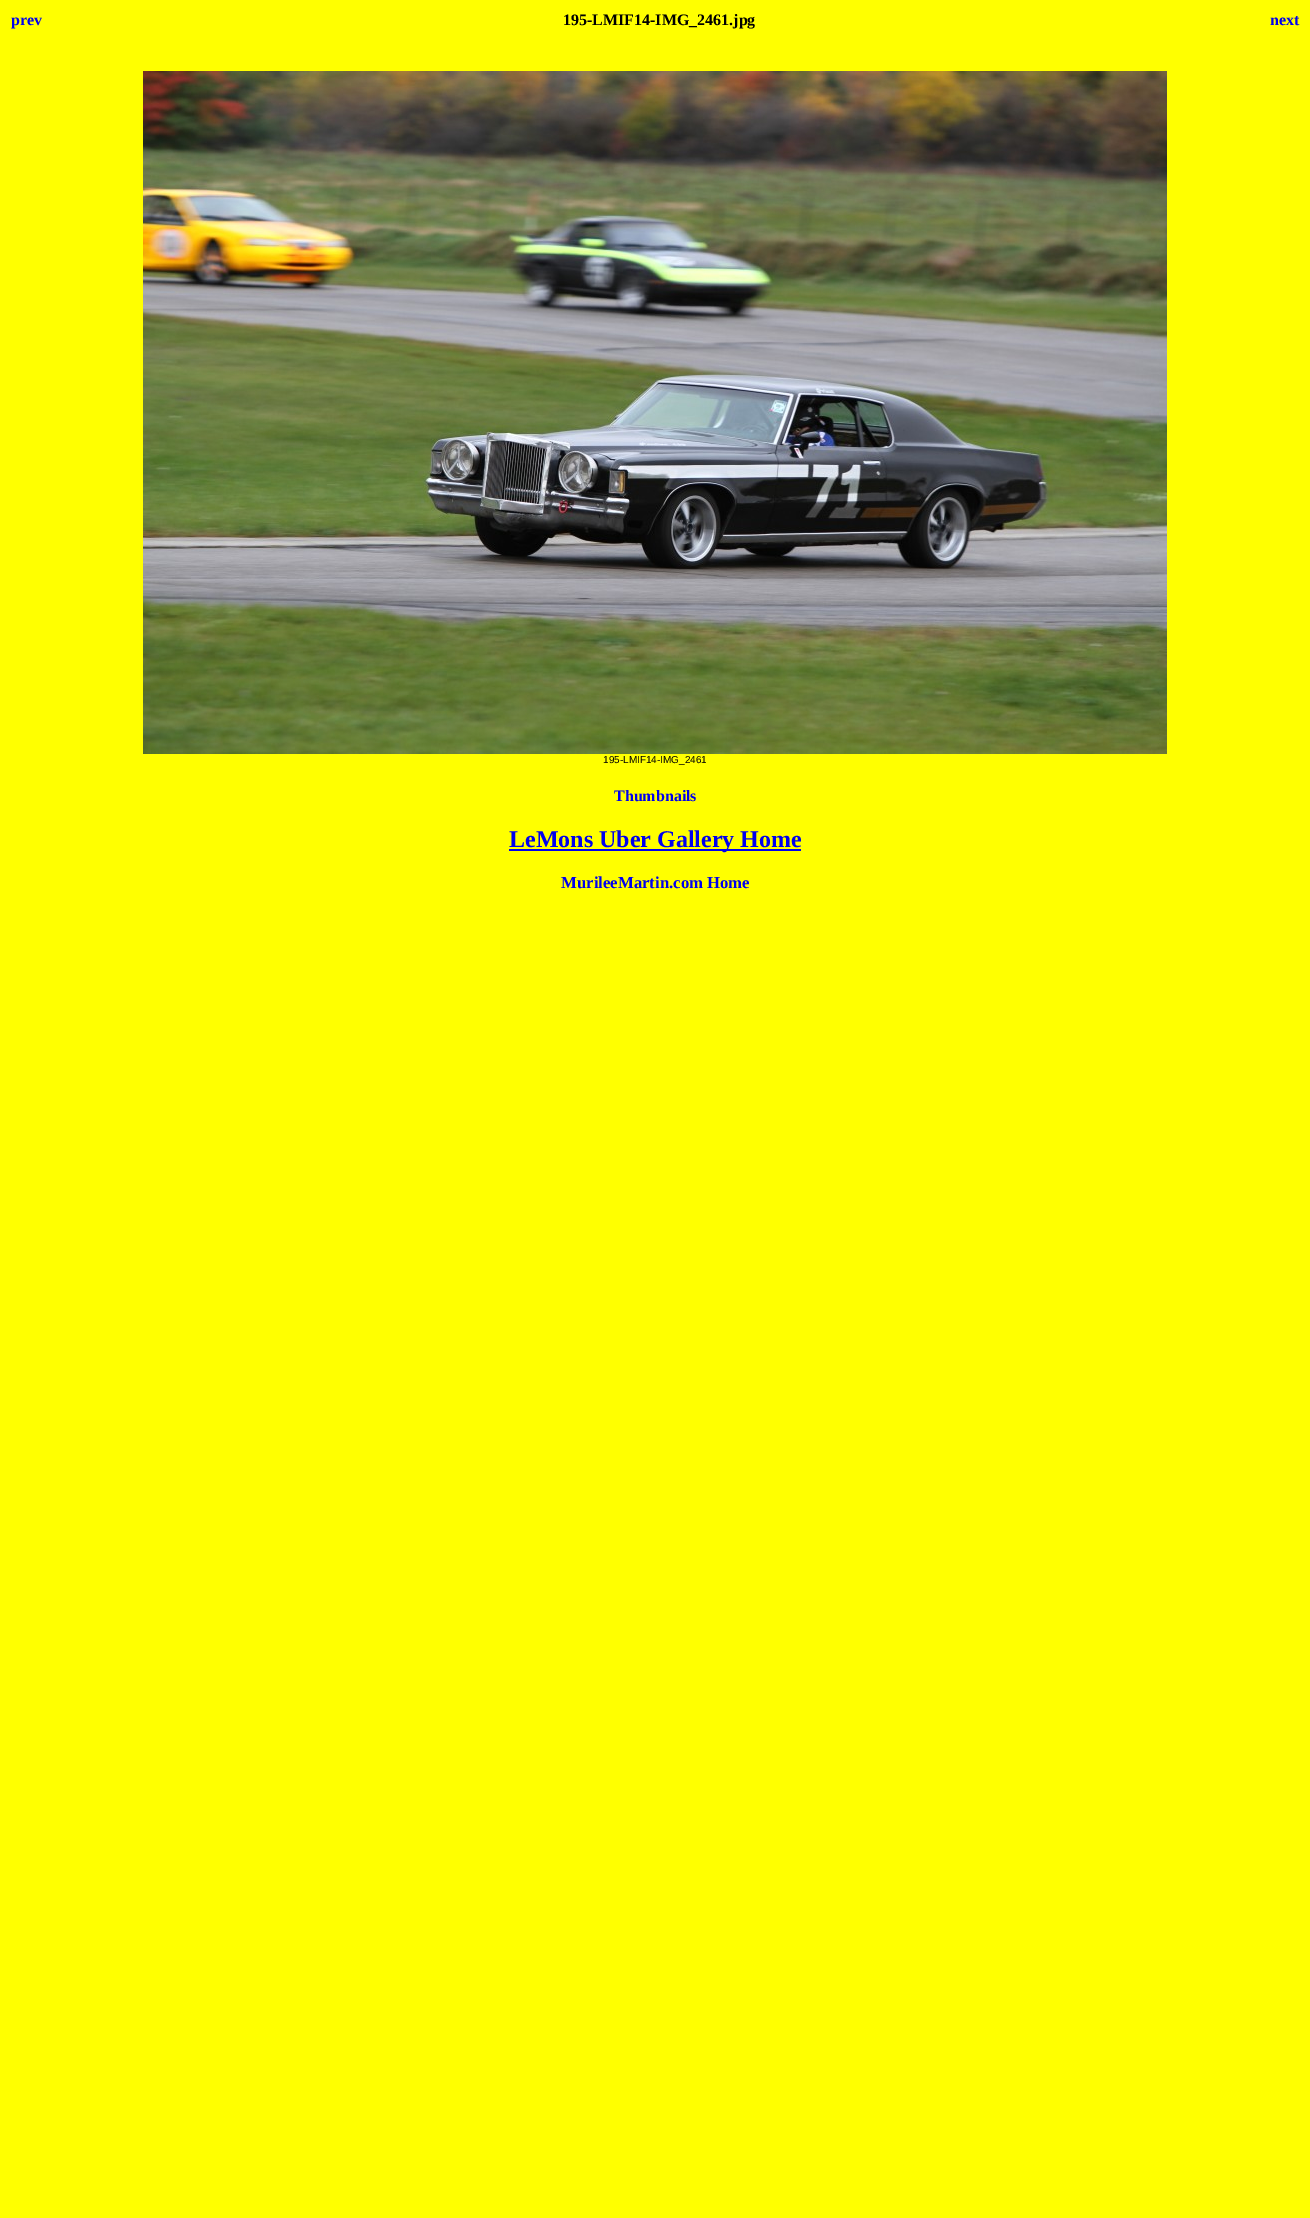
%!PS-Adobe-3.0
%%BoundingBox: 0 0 1310 2218
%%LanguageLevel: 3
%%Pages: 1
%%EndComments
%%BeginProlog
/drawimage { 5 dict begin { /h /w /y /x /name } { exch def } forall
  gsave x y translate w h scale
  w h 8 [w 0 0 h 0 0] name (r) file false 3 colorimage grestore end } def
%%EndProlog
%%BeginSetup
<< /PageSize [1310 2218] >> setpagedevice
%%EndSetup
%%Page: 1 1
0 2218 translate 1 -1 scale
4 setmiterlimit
1 1 0 setrgbcolor
0 0 1310 2218 rectfill
(images/1.raw) 143 71 1024 683 drawimage
0 0 0.933 setrgbcolor
509 849 292 2 rectfill
/LiberationSerif-Bold [16 0 0 -16 0 0] selectfont
11 25 moveto (prev) show
0 setgray
563 25 moveto (195-LMIF14-IMG_2461.jpg) show
0 0 0.933 setrgbcolor
1270 25 moveto (next) show
/LiberationSans-Regular [10 0 0 -10 0 0] selectfont
0 setgray
603 763 moveto (195-LMIF14-IMG_2461) show
/LiberationSerif-Bold [16 0 0 -16 0 0] selectfont
0 0 0.933 setrgbcolor
614 801 moveto (Thumbnails) show
/LiberationSerif-Bold [24 0 0 -24 0 0] selectfont
509 847 moveto (LeMons Uber Gallery Home) show
/LiberationSerif-Bold [16.75 0 0 -16.75 0 0] selectfont
561 888 moveto (MurileeMartin.com Home) show
showpage
%%EOF
